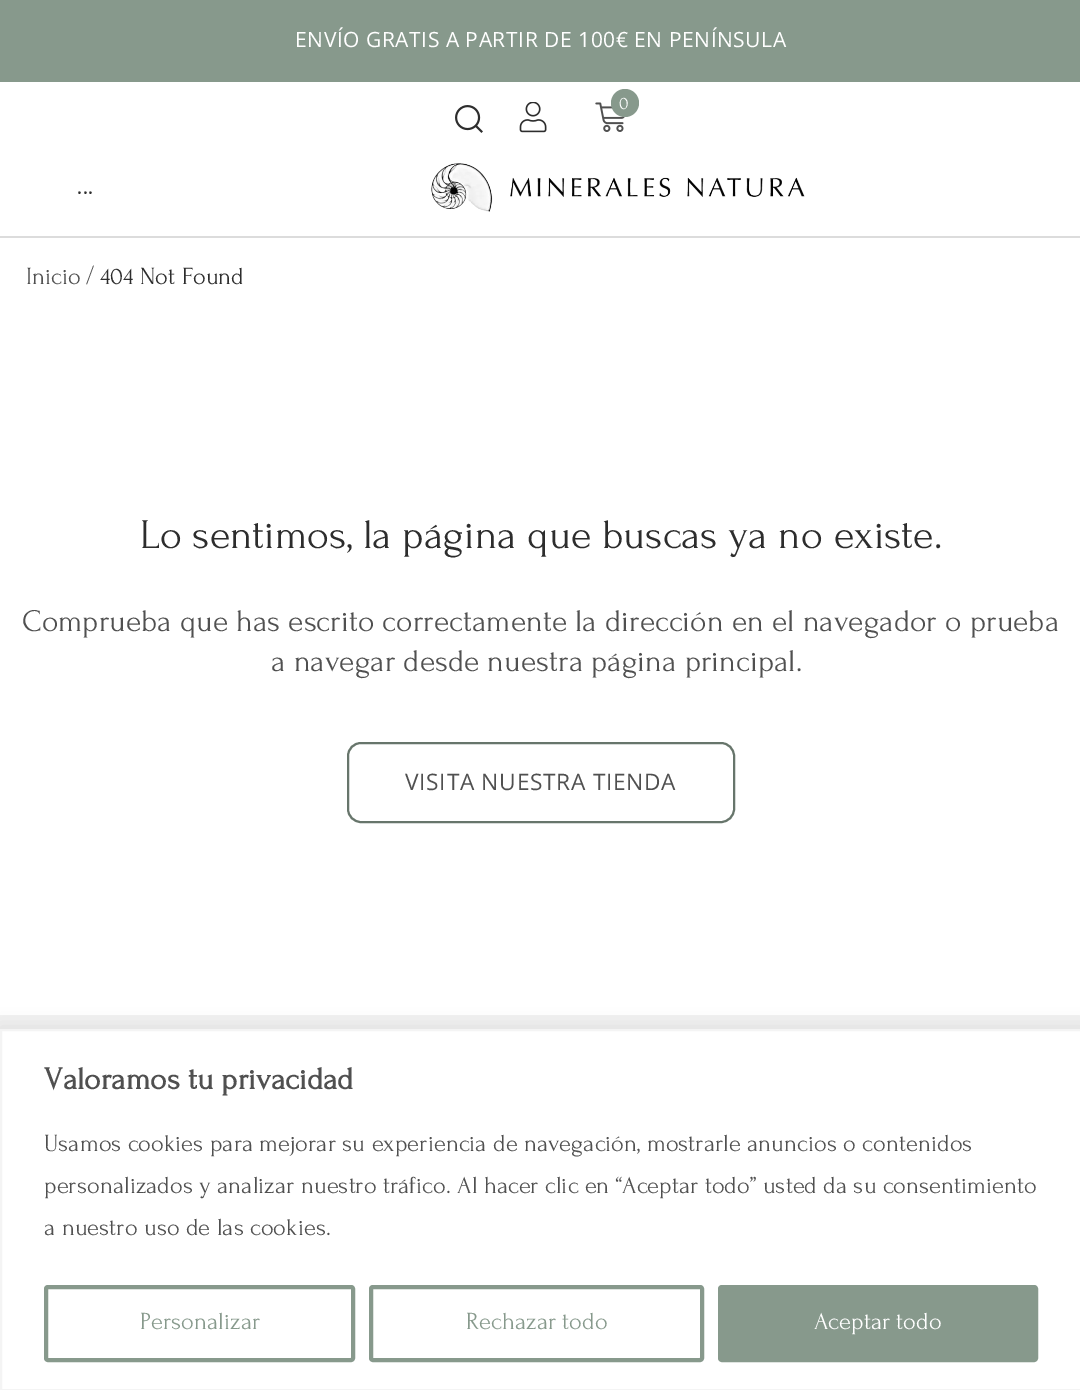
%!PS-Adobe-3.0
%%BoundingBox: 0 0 1080 1390
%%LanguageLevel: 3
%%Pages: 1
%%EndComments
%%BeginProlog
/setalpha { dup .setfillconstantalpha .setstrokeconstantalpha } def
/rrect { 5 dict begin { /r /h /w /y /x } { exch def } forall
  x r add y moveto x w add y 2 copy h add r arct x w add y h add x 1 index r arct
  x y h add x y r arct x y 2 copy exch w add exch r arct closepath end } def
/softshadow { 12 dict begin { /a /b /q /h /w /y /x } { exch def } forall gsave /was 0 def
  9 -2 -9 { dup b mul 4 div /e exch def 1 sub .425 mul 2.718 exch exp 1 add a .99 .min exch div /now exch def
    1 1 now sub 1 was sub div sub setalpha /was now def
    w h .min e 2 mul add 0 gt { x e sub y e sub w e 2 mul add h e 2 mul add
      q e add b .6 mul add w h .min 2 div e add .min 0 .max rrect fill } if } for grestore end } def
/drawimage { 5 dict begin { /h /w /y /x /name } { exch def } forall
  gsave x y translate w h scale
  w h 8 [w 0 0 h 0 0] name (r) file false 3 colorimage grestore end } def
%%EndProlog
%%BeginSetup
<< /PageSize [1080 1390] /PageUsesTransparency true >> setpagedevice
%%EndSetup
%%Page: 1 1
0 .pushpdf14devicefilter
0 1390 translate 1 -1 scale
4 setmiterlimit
1 setgray
0 0 1080 1390 rectfill
0.529 0.6 0.549 setrgbcolor
0 0 1080 82 rectfill
(images/1.raw) 455 105 28 28 drawimage
(images/2.raw) 519 102 28 31 drawimage
(images/3.raw) 595 102 30 30 drawimage
newpath 625 103 14 0 360 arc closepath fill
(images/4.raw) 431 163 374 49 drawimage
0.863 setgray
0 236 1080 2 rectfill
0.404 0.459 0.42 setrgbcolor
2 setlinewidth
348 743 386 79 13 rrect stroke
0.949 setgray
0 1015 1080 14 rectfill
0.675 0.671 0.671 setrgbcolor
0 1027 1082 363 0 9 0.3 softshadow
1 setgray
newpath 1 1030 moveto 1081 1030 lineto 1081 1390 lineto 1 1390 lineto closepath gsave fill grestore
0.957 setgray
stroke
0.529 0.6 0.549 setrgbcolor
4 setlinewidth
46 1287 307 73 2 rrect stroke
371 1287 331 73 2 rrect stroke
720 1287 316 73 2 rrect gsave fill grestore
stroke
/OpenSans-Regular [21 0 0 -21 0 0] selectfont
1 setgray
295 47 moveto 0.55 0 (ENVÍO GRATIS A PARTIR DE 100€ EN PENÍNSULA) ashow
/Forum-Regular [18 0 0 -18 0 0] selectfont
619 109 moveto (0) show
/Forum-Regular [28 0 0 -28 0 0] selectfont
0.176 setgray
77 198 moveto 1 0 (···) ashow
/Forum-Regular [24.5 0 0 -24.5 0 0] selectfont
0.314 setgray
26 284 moveto (Inicio) show
86 283 moveto (/) show
0.176 setgray
100 284 moveto (404 Not Found) show
/Forum-Regular [42 0 0 -42 0 0] selectfont
140 548 moveto (Lo sentimos, la página que buscas ya no existe.) show
/Forum-Regular [31.5 0 0 -31.5 0 0] selectfont
0.314 setgray
22 631 moveto (Comprueba que has escrito correctamente la dirección en el navegador o prueba) show
271 671 moveto (a navegar desde nuestra página principal.) show
/OpenSans-Regular [22.75 0 0 -22.75 0 0] selectfont
405 790 moveto 0.7 0 (VISITA NUESTRA TIENDA) ashow
/Forum-Bold [31.5 0 0 -31.5 0 0] selectfont
44 1089 moveto (Valoramos tu privacidad) show
/Forum-Regular [24.5 0 0 -24.5 0 0] selectfont
44 1151 moveto (Usamos cookies para mejorar su experiencia de navegación, mostrarle anuncios o contenidos) show
44 1193 moveto (personalizados y analizar nuestro tráfico. Al hacer clic en “Aceptar todo” usted da su consentimiento) show
44 1235 moveto (a nuestro uso de las cookies.) show
0.529 0.6 0.549 setrgbcolor
140 1329 moveto (Personalizar) show
466 1329 moveto (Rechazar todo) show
1 setgray
814 1329 moveto (Aceptar todo) show
.poppdf14devicefilter showpage
%%EOF
